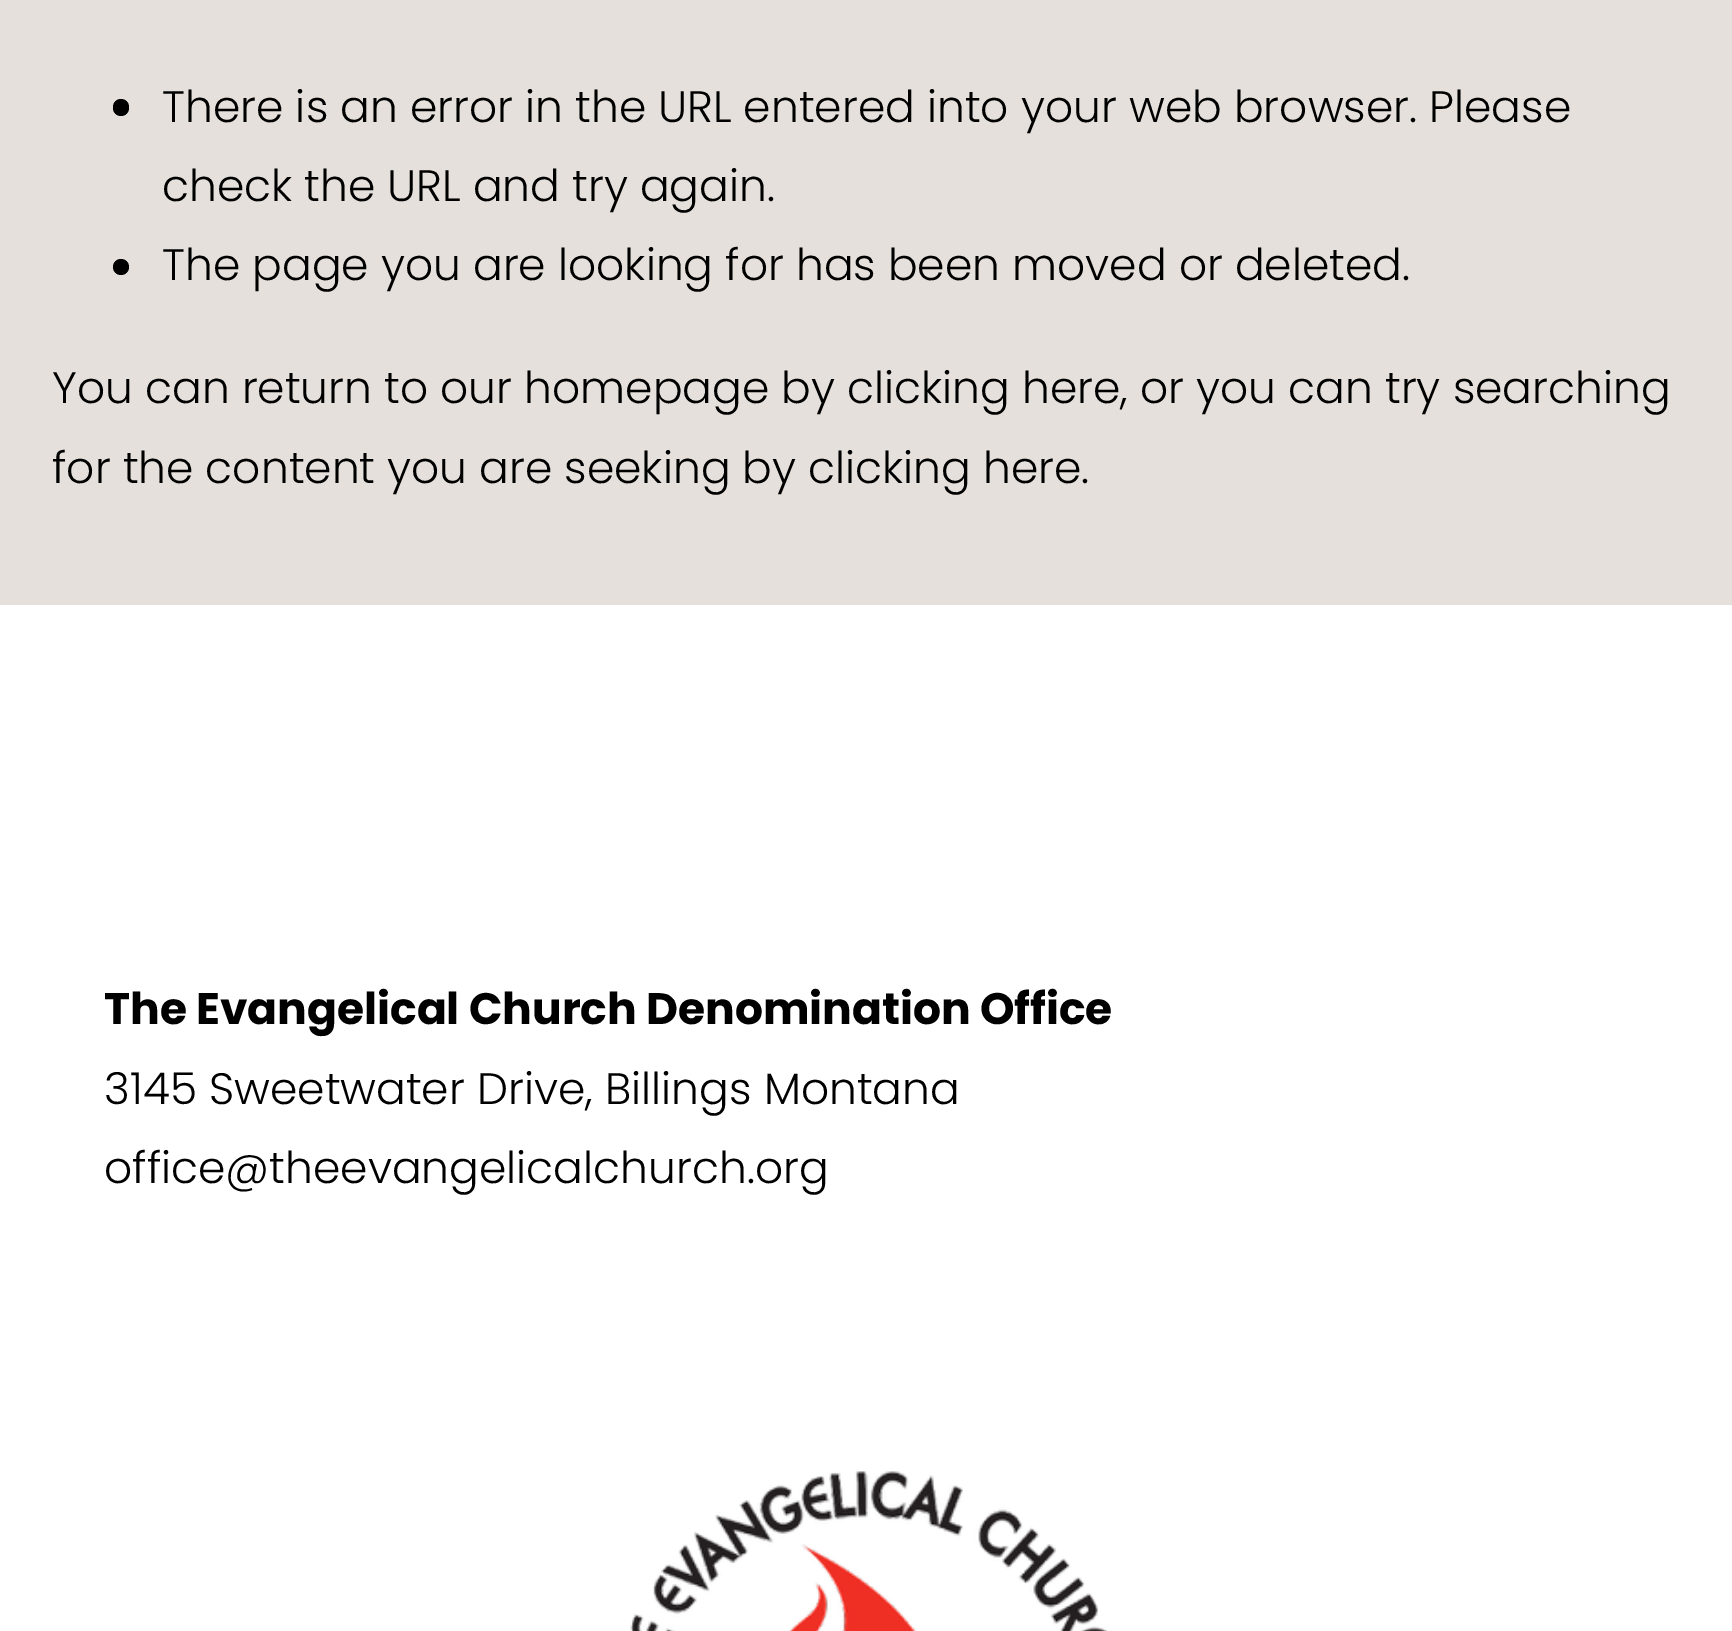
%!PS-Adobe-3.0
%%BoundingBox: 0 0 1732 1631
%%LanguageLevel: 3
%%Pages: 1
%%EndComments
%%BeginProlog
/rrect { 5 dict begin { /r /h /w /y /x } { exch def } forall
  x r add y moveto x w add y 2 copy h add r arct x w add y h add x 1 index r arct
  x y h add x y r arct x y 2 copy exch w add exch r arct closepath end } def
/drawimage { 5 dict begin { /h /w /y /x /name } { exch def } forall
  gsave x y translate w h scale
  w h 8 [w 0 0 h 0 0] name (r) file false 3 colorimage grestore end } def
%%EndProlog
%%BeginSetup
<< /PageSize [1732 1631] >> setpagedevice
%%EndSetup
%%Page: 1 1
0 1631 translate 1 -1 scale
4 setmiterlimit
0.898 0.878 0.859 setrgbcolor
0 0 1732 1631 rectfill
0 setgray
113 99 16 17 8 rrect fill
newpath 121 267 8 0 360 arc closepath fill
1 setgray
0 605 1732 1026 rectfill
(images/1.raw) 630 1471 478 160 drawimage
/Poppins-Light [44 0 0 -44 0 0] selectfont
0 setgray
162 122 moveto (There is an error in the URL entered into your web browser. Please) show
162 201 moveto (check the URL and try again.) show
162 280 moveto (The page you are looking for has been moved or deleted.) show
52 403 moveto (You can return to our homepage by clicking here, or you can try searching) show
52 483 moveto (for the content you are seeking by clicking here.) show
/Poppins-Bold [44 0 0 -44 0 0] selectfont
104 1024 moveto (The Evangelical Church Denomination Office) show
/Poppins-Light [44 0 0 -44 0 0] selectfont
104 1104 moveto (3145 Sweetwater Drive, Billings Montana) show
104 1183 moveto (office@theevangelicalchurch.org) show
showpage
%%EOF
